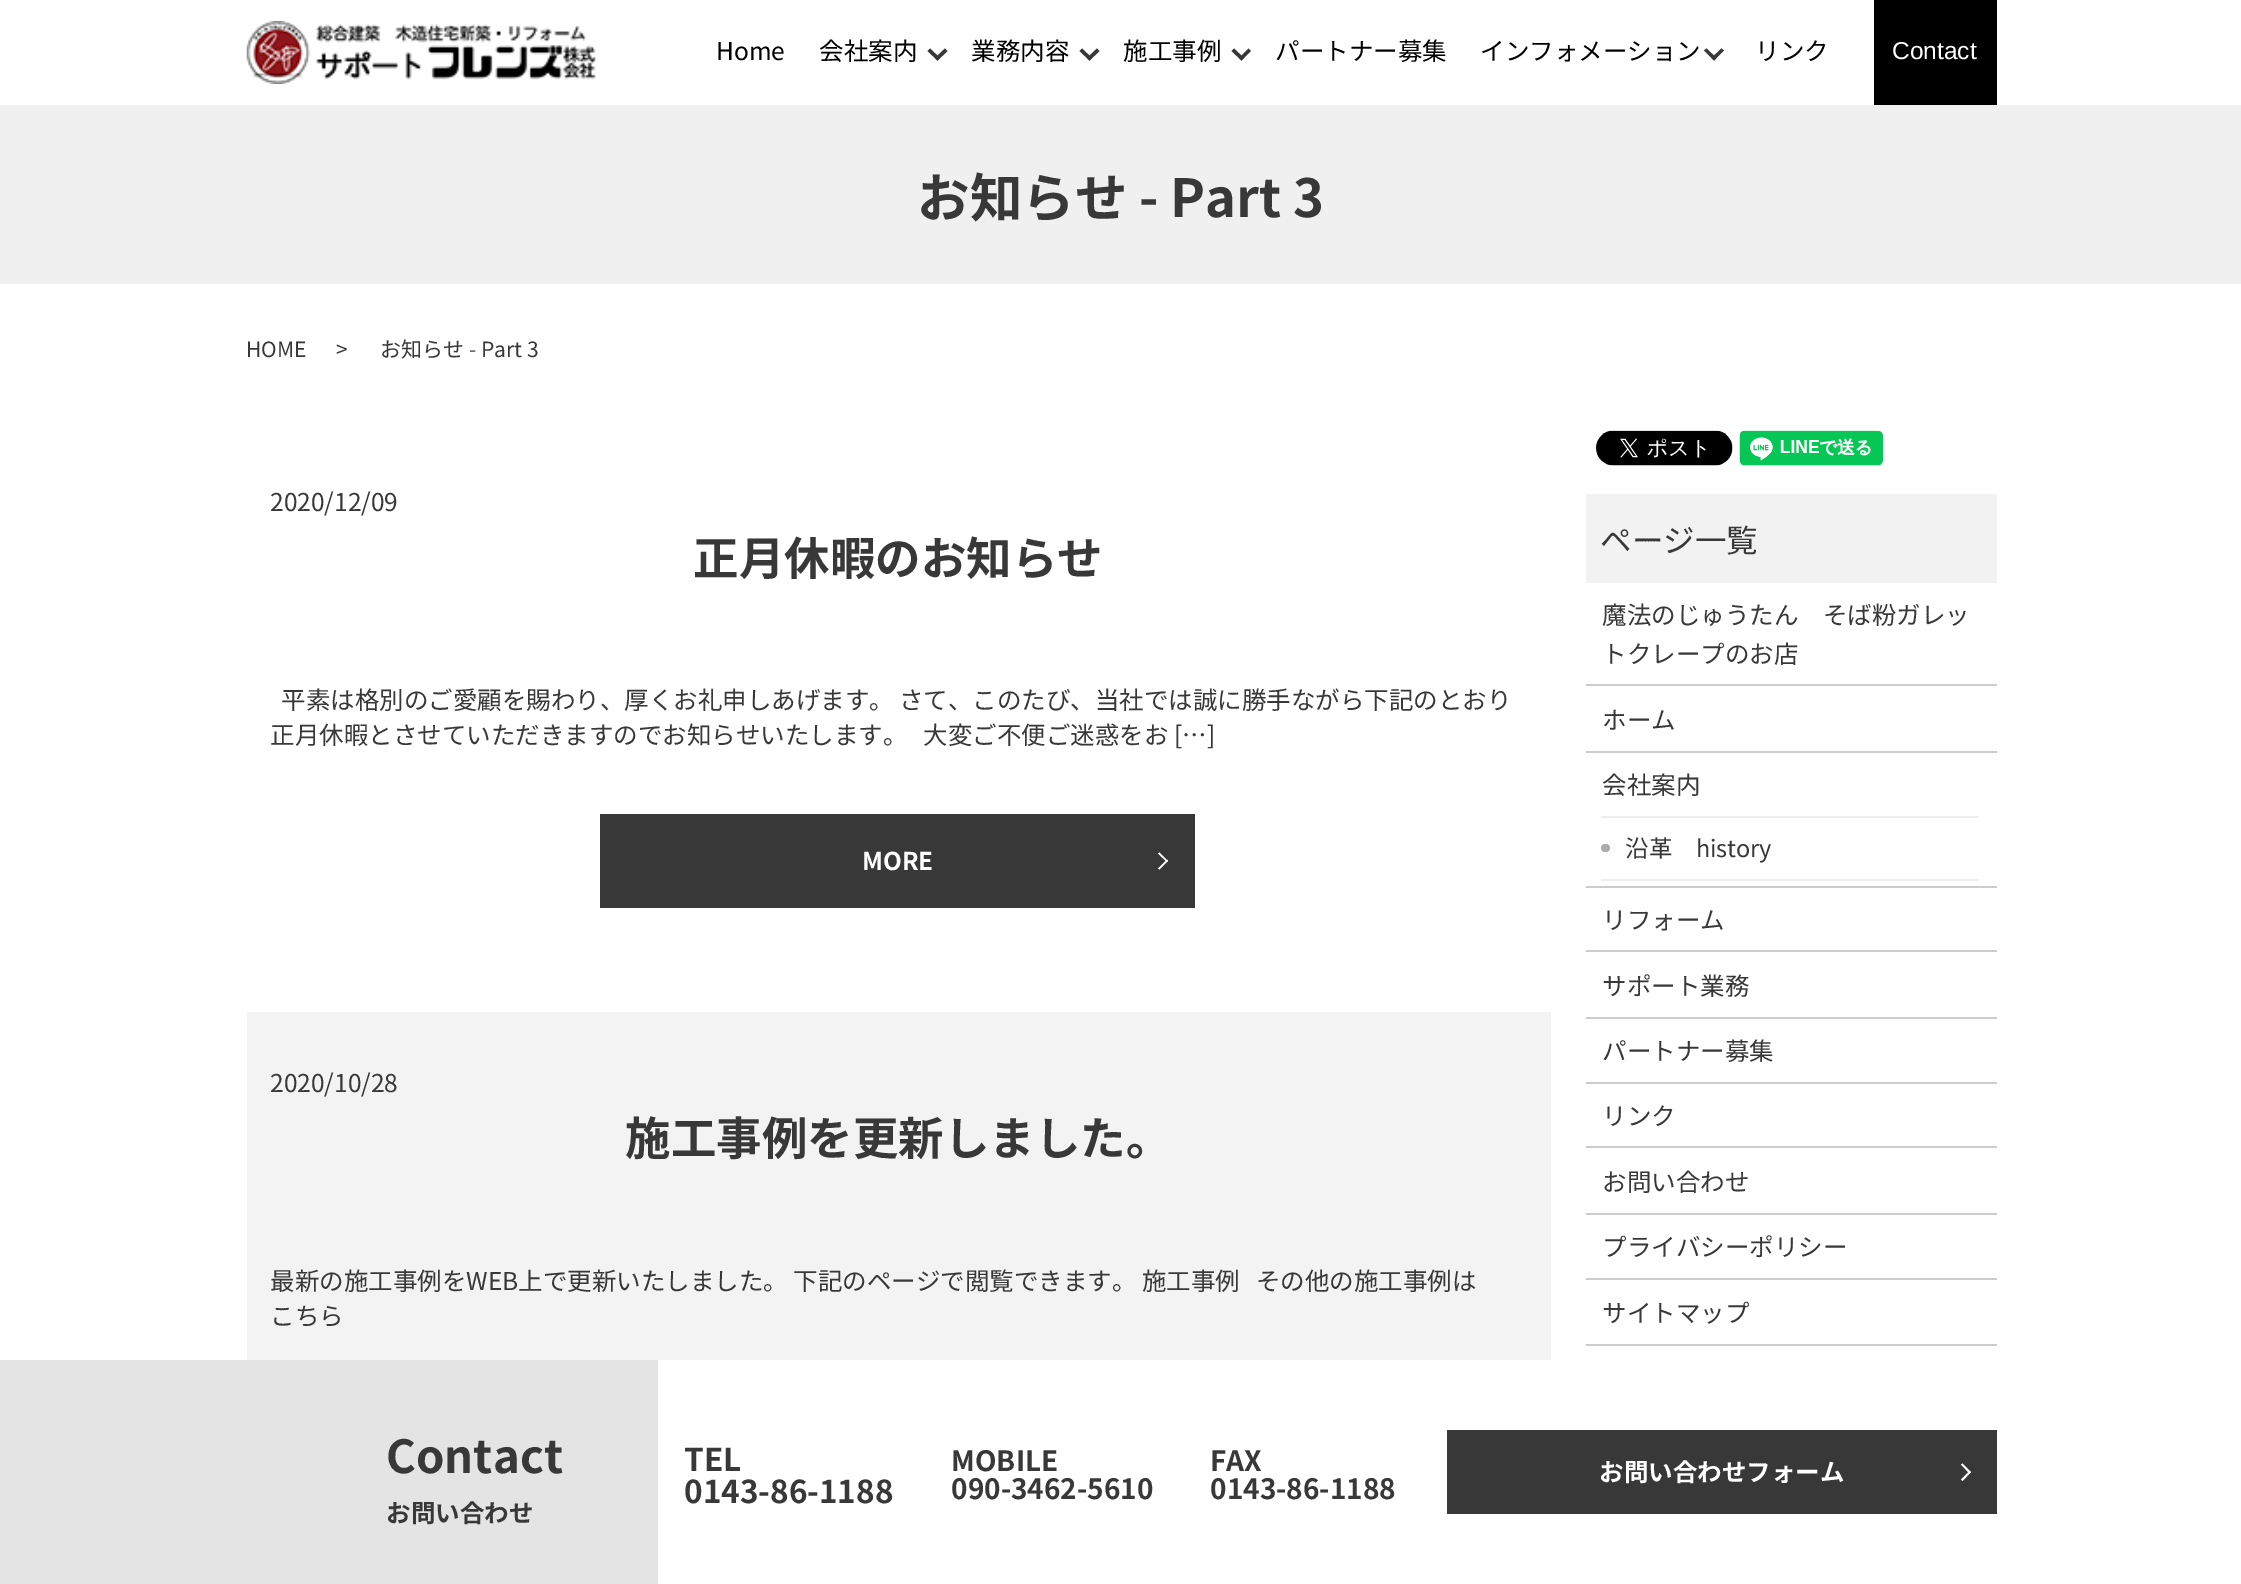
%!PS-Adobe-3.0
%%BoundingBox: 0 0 2241 1584
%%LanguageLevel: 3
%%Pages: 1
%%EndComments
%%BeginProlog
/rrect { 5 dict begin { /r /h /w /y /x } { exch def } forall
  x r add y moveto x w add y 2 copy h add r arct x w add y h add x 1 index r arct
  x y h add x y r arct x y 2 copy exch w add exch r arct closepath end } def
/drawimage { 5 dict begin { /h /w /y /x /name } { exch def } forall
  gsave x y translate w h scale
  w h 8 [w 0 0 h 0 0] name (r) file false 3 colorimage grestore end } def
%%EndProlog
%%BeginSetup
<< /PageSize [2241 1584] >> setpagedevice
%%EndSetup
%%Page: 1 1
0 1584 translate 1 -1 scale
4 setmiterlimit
1 setgray
0 0 2241 1584 rectfill
(images/1.raw) 246 21 350 63 drawimage
0.22 setgray
newpath 947.5 51 moveto 937.5 60.5 lineto 935 58 lineto 945 48.5 lineto closepath fill
newpath 940 58 moveto 937.5 60.5 lineto 927.5 51 lineto 930 48.5 lineto closepath fill
newpath 1099.5 51 moveto 1089.5 60.5 lineto 1087 58 lineto 1097 48.5 lineto closepath fill
newpath 1092 58 moveto 1089.5 60.5 lineto 1079.5 51 lineto 1082 48.5 lineto closepath fill
newpath 1251 51 moveto 1241.5 60.5 lineto 1239 58 lineto 1248.5 48.5 lineto closepath fill
newpath 1244 58 moveto 1241.5 60.5 lineto 1231.5 51 lineto 1234 48.5 lineto closepath fill
newpath 1724 50.5 moveto 1714 60.5 lineto 1711.5 58 lineto 1721.5 48.5 lineto closepath fill
newpath 1716.5 58 moveto 1714 60.5 lineto 1704 50.5 lineto 1706.5 48.5 lineto closepath fill
0 setgray
1874 0 123 105 rectfill
0.941 setgray
0 105 2241 179 rectfill
0.22 setgray
600 814 595 94 rectfill
1 setgray
newpath 1159.5 852.5 moveto 1168 861 lineto 1167 862 lineto 1158 853.5 lineto closepath fill
newpath 1167 859.5 moveto 1168 861 lineto 1159.5 869.5 lineto 1158 868.5 lineto closepath fill
0.953 setgray
247 1012 1304 348 rectfill
(images/2.raw) 1596 430 137 36 drawimage
(images/3.raw) 1739 430 144 36 drawimage
0.949 setgray
1586 494 411 89 rectfill
0.8 setgray
1586 684 411 2 rectfill
1586 751 411 2 rectfill
1586 886 411 2 rectfill
0.933 setgray
1601 816 378 2 rectfill
1601 879 378 2 rectfill
0.686 0.671 0.667 setrgbcolor
1601 844 9 8 4 rrect fill
0.8 setgray
1586 950 411 2 rectfill
1586 1017 411 2 rectfill
1586 1082 411 2 rectfill
1586 1146 411 2 rectfill
1586 1213 411 2 rectfill
1586 1278 411 2 rectfill
1586 1344 411 2 rectfill
0.894 setgray
0 1360 658 224 rectfill
0.22 setgray
1447 1430 550 84 rectfill
1 setgray
newpath 1962.5 1463.5 moveto 1971 1472 lineto 1969.5 1473.5 lineto 1961 1464.5 lineto closepath fill
newpath 1969.5 1471 moveto 1971 1472 lineto 1962.5 1481 lineto 1961 1479.5 lineto closepath fill
/NotoSansJP-Regular [24.5 0 0 -24.5 0 0] selectfont
0 setgray
716 60 moveto (Home) show
819 60 moveto (会社案内) show
971 60 moveto (業務内容) show
1123 60 moveto (施工事例) show
1275 60 moveto (パートナー募集) show
1480 60 moveto (インフォメーション) show
1755 60 moveto (リンク) show
/LiberationSans-Regular [24.5 0 0 -24.5 0 0] selectfont
1 setgray
1892 59 moveto (Contact) show
/NotoSansJP-Bold [52.5 0 0 -52.5 0 0] selectfont
0.22 setgray
917 217 moveto (お知らせ - Part 3) show
/NotoSansJP-Regular [21 0 0 -21 0 0] selectfont
246 357 moveto (HOME) show
336 357 moveto (>) show
380 357 moveto (お知らせ - Part 3) show
/NotoSansJP-Regular [24.5 0 0 -24.5 0 0] selectfont
270 511 moveto (2020/12/09) show
/NotoSansJP-Bold [45.5 0 0 -45.5 0 0] selectfont
693 575 moveto (正月休暇のお知らせ) show
/NotoSansJP-Regular [24.5 0 0 -24.5 0 0] selectfont
281 709 moveto (平素は格別のご愛顧を賜わり、厚くお礼申しあげます。 さて、このたび、当社では誠に勝手ながら下記のとおり) show
270 744 moveto (正月休暇とさせていただきますのでお知らせいたします。   大変ご不便ご迷惑をお […]) show
/NotoSansJP-Bold [24.5 0 0 -24.5 0 0] selectfont
1 setgray
862 870 moveto (MORE) show
/NotoSansJP-Regular [24.5 0 0 -24.5 0 0] selectfont
0.22 setgray
270 1092 moveto (2020/10/28) show
/NotoSansJP-Bold [45.5 0 0 -45.5 0 0] selectfont
625 1155 moveto (施工事例を更新しました。) show
/NotoSansJP-Regular [24.5 0 0 -24.5 0 0] selectfont
270 1290 moveto (最新の施工事例をWEB上で更新いたしました。 下記のページで閲覧できます。 施工事例   その他の施工事例は) show
270 1325 moveto (こちら) show
/NotoSansJP-Regular [31.5 0 0 -31.5 0 0] selectfont
1600 552 moveto (ページ一覧) show
/NotoSansJP-Regular [24.5 0 0 -24.5 0 0] selectfont
1602 624 moveto (魔法のじゅうたん　そば粉ガレッ) show
1602 663 moveto (トクレープのお店) show
1602 729 moveto (ホーム) show
1602 794 moveto (会社案内) show
/NotoSansJP-Regular [23.5 0 0 -23.5 0 0] selectfont
1625 857 moveto (沿革　history) show
/NotoSansJP-Regular [24.5 0 0 -24.5 0 0] selectfont
1602 929 moveto (リフォーム) show
1602 995 moveto (サポート業務) show
1602 1060 moveto (パートナー募集) show
1602 1125 moveto (リンク) show
1602 1191 moveto (お問い合わせ) show
1602 1256 moveto (プライバシーポリシー) show
1602 1322 moveto (サイトマップ) show
/NotoSansJP-Bold [45.5 0 0 -45.5 0 0] selectfont
386 1473 moveto (Contact) show
/NotoSansJP-Bold [24.5 0 0 -24.5 0 0] selectfont
386 1522 moveto (お問い合わせ) show
/NotoSansJP-Bold [31.5 0 0 -31.5 0 0] selectfont
684 1471 moveto (TEL) show
684 1503 moveto (0143-86-1188) show
/NotoSansJP-Bold [28 0 0 -28 0 0] selectfont
951 1471 moveto (MOBILE) show
951 1499 moveto (090-3462-5610) show
1210 1471 moveto (FAX) show
1210 1499 moveto (0143-86-1188) show
/NotoSansJP-Bold [24.5 0 0 -24.5 0 0] selectfont
1 setgray
1599 1481 moveto (お問い合わせフォーム) show
showpage
%%EOF
